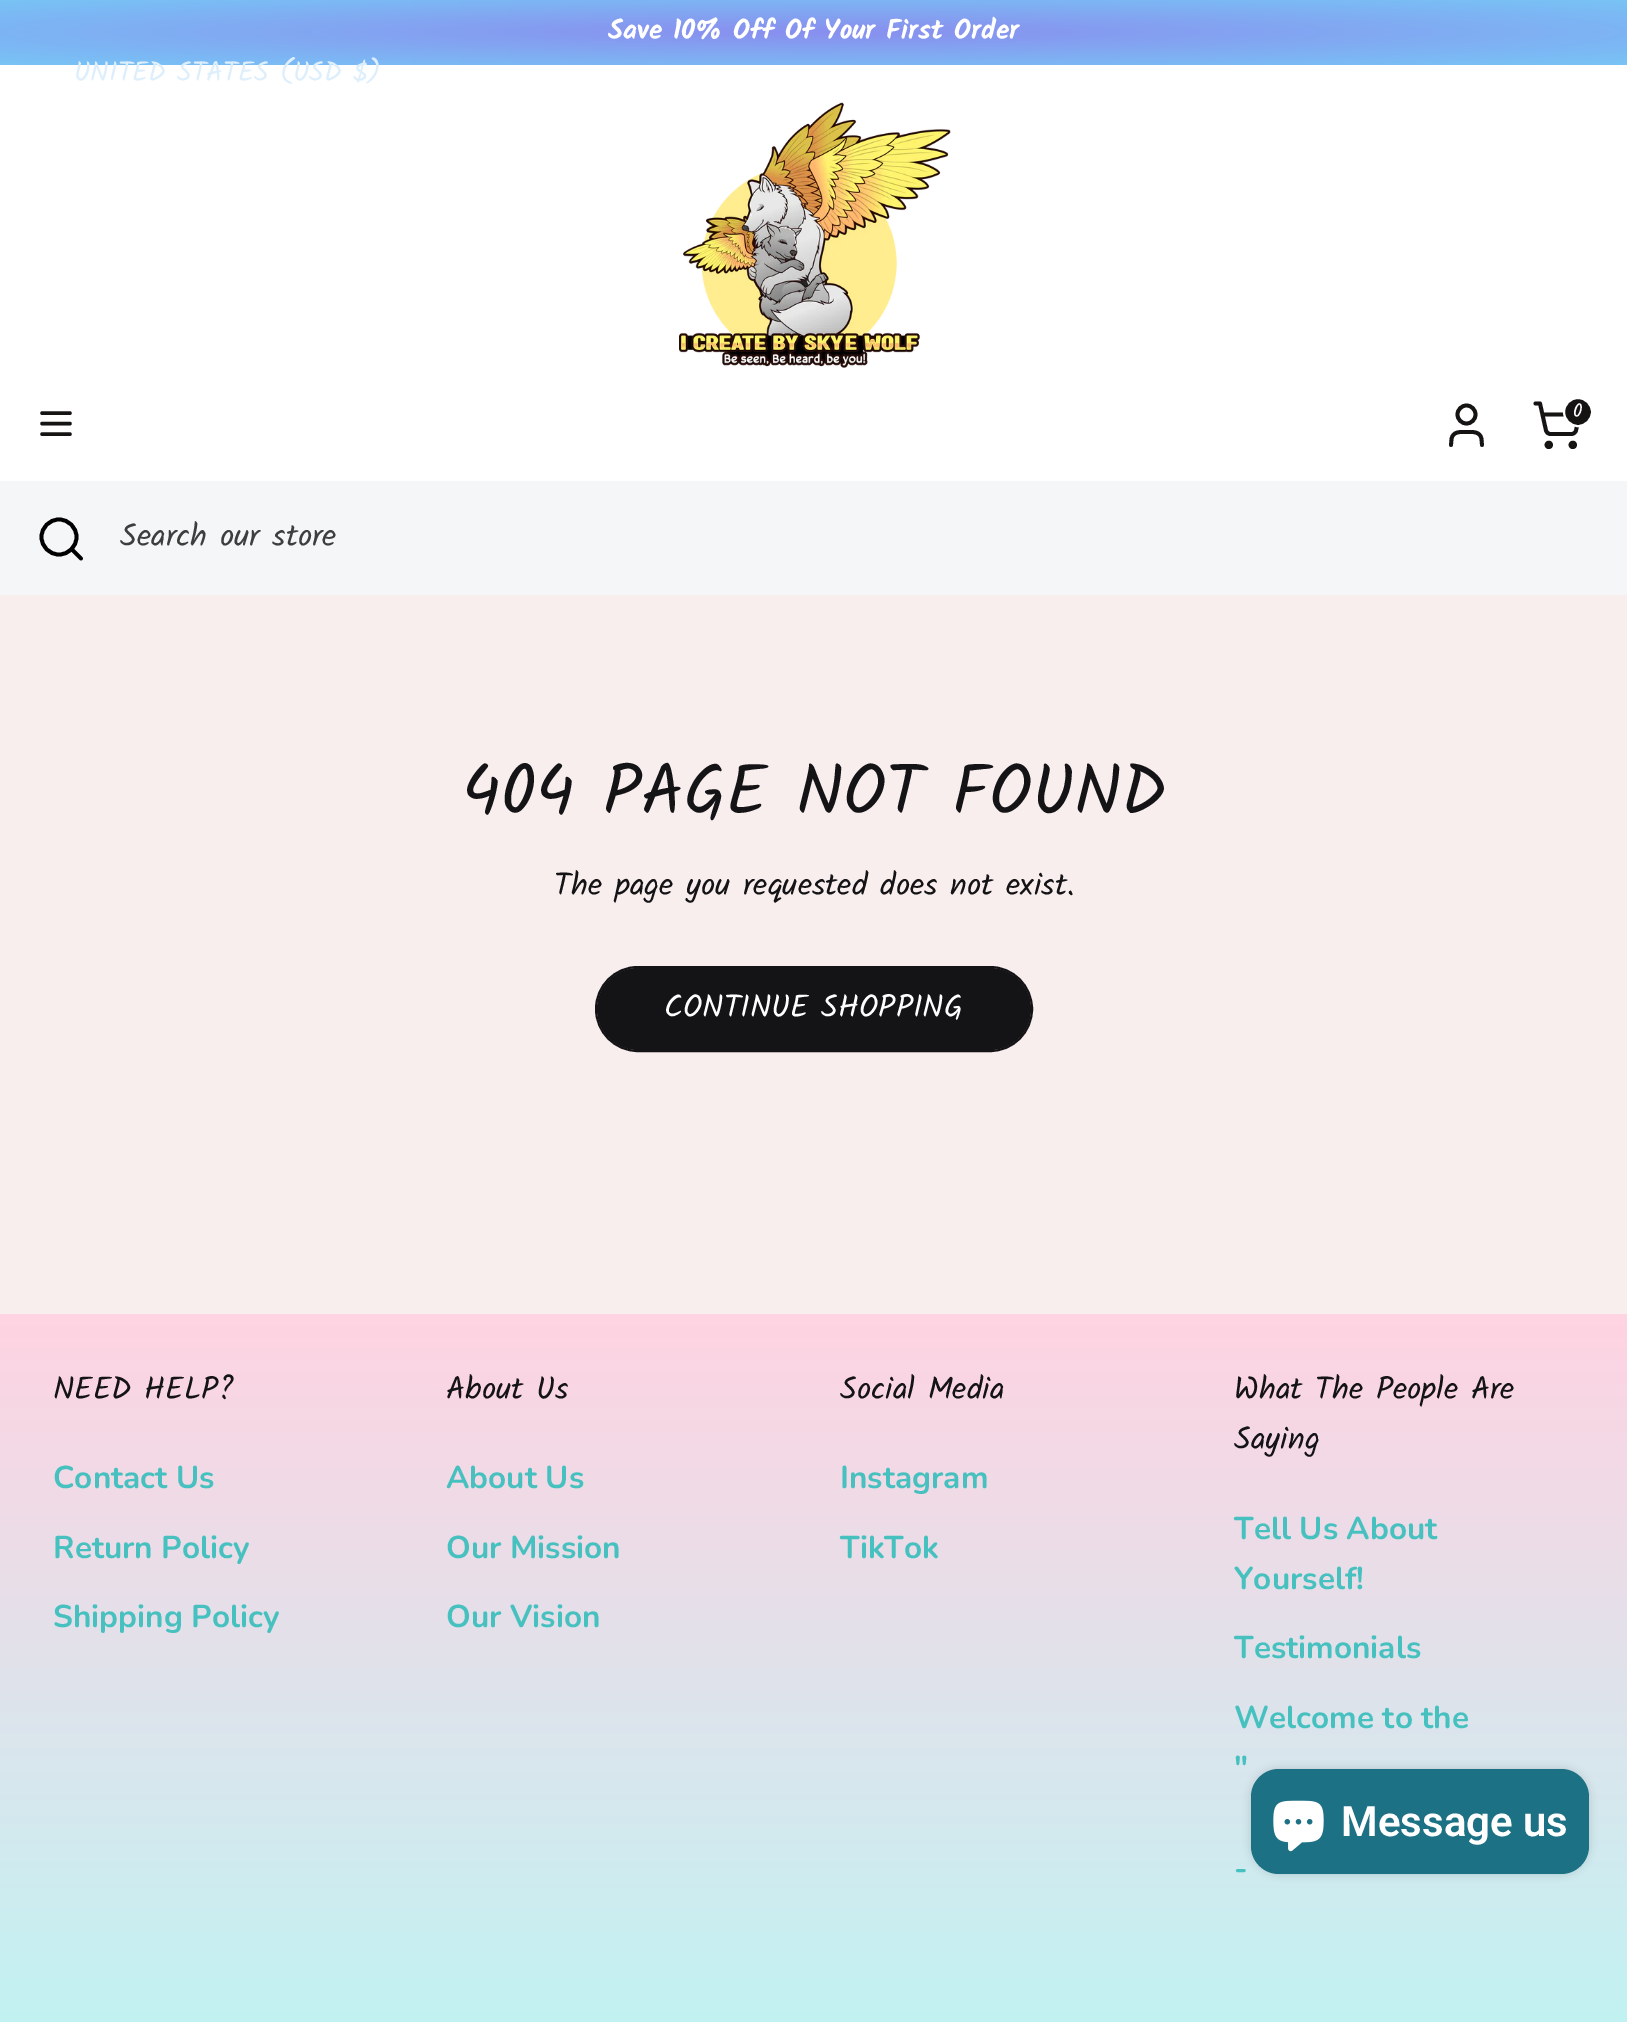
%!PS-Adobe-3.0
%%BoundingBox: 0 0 1627 2022
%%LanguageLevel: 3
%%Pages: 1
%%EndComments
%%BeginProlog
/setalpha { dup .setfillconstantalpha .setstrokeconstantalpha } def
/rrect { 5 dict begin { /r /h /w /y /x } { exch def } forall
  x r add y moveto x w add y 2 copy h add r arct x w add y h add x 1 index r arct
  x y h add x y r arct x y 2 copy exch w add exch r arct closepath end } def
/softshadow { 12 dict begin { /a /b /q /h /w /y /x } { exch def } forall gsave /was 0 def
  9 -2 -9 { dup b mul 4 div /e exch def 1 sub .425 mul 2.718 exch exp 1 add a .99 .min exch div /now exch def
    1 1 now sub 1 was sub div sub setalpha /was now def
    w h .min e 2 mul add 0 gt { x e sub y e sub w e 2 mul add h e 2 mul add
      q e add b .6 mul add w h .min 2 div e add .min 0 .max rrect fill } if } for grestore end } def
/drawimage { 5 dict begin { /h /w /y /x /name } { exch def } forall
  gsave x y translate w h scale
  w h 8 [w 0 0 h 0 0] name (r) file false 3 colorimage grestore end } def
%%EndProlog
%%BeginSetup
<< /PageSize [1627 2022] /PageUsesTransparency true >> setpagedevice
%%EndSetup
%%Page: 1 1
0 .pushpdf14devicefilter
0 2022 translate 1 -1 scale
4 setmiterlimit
0.976 0.933 0.933 setrgbcolor
0 0 1627 2022 rectfill
gsave newpath 0 0 moveto 1627 0 lineto 1627 65 lineto 0 65 lineto closepath clip newpath 814 32 translate 1151 46 scale
<< /ShadingType 3 /ColorSpace /DeviceRGB /Coords [0 0 0 0 0 1] /Extend [true true] /Function << /FunctionType 2 /Domain [0 1] /C0 [0.537 0.561 0.937] /C1 [0.471 0.769 0.961] /N 1 >> >> shfill grestore
1 setgray
0 65 1627 416 rectfill
(images/1.raw) 679 102 272 266 drawimage
0.086 0.075 0.075 setrgbcolor
3.5 setlinewidth
1 setlinecap
1 setlinejoin
newpath 42 423.5 moveto 70 423.5 lineto 42 413 moveto 70 413 lineto 42 434 moveto 70 434 lineto stroke
3.8 setlinewidth
newpath 1482 445 moveto 1481.5 439 lineto 1480 431 1472.5 432 1466.5 432 curveto 1460.5 432 1453 431 1451.5 439 curveto 1451 445 lineto stroke
0 setlinecap
0 setlinejoin
newpath 1466.5 414.5 9 0 360 arc closepath stroke
newpath 1548.8 444.9 2.2 0 360 arc closepath stroke
newpath 1572.8 444.9 2.2 0 360 arc closepath stroke
1 setlinecap
1 setlinejoin
newpath 1535.5 403.5 moveto 1540 403.5 lineto 1546 430.5 lineto 1546.5 432.5 1548 434 1550.5 434 curveto 1571.5 434 lineto 1573.5 434 1575.5 432.5 1576 430.5 curveto 1579.5 414.5 lineto 1542.5 414.5 lineto stroke
newpath 1578 412 14 0 360 arc closepath gsave fill grestore
1 setgray
2 setlinewidth
0 setlinecap
0 setlinejoin
stroke
0.957 0.965 0.973 setrgbcolor
0 481 1627 114 rectfill
0 setgray
3.8 setlinewidth
newpath 59 537 17.5 0 360 arc closepath stroke
1 setlinecap
1 setlinejoin
newpath 81 558.5 moveto 71.5 549 lineto stroke
0.078 0.075 0.086 setrgbcolor
2 setlinewidth
0 setlinecap
0 setlinejoin
596 967 436 84 42 rrect stroke
597 968 434 82 41 rrect fill
gsave newpath 0 1314 moveto 1627 1314 lineto 1627 2022 lineto 0 2022 lineto closepath clip newpath
<< /ShadingType 2 /ColorSpace /DeviceRGB /Coords [814 1314 814 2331] /Extend [true true] /Function << /FunctionType 2 /Domain [0 1] /C0 [1 0.827 0.886] /C1 [0.659 1 0.984] /N 1 >> >> shfill grestore
0 setgray
1251 1769 338 105 28 4.5 0.15 softshadow
0.114 0.443 0.518 setrgbcolor
1251 1769 338 105 28 rrect fill
(images/2.raw) 1273 1800 51 52 drawimage
/Kalam-Bold [27.5 0 0 -27.5 0 0] selectfont
1 setgray
608 39 moveto (Save 10% Off Of Your First Order) show
/Kalam-Regular [27.5 0 0 -27.5 0 0] selectfont
0.867 0.933 0.988 setrgbcolor
74 81 moveto (UNITED STATES \(USD $\)) show
/Kalam-Regular [19 0 0 -19 0 0] selectfont
1 setgray
1573 417 moveto (0) show
/Kalam-Regular [31.5 0 0 -31.5 0 0] selectfont
0.239 0.243 0.243 setrgbcolor
120 546 moveto (Search our store) show
/Kalam-Regular [70.25 0 0 -70.25 0 0] selectfont
0.078 0.075 0.086 setrgbcolor
462 814 moveto (404 PAGE NOT FOUND) show
/Kalam-Regular [31.5 0 0 -31.5 0 0] selectfont
554 895 moveto (The page you requested does not exist.) show
1 setgray
664 1017 moveto (CONTINUE SHOPPING) show
0.078 0.075 0.086 setrgbcolor
53 1399 moveto (NEED HELP?) show
/Nunito-Bold [31.5 0 0 -31.5 0 0] selectfont
0.278 0.757 0.749 setrgbcolor
53 1488 moveto (Contact Us) show
53 1558 moveto (Return Policy) show
53 1627 moveto (Shipping Policy) show
/Kalam-Regular [31.5 0 0 -31.5 0 0] selectfont
0.078 0.075 0.086 setrgbcolor
446 1399 moveto (About Us) show
/Nunito-Bold [31.5 0 0 -31.5 0 0] selectfont
0.278 0.757 0.749 setrgbcolor
446 1488 moveto (About Us) show
446 1558 moveto (Our Mission) show
446 1627 moveto (Our Vision) show
/Kalam-Regular [31.5 0 0 -31.5 0 0] selectfont
0.078 0.075 0.086 setrgbcolor
840 1399 moveto (Social Media) show
/Nunito-Bold [31.5 0 0 -31.5 0 0] selectfont
0.278 0.757 0.749 setrgbcolor
840 1488 moveto (Instagram) show
840 1558 moveto (TikTok) show
/Kalam-Regular [31.5 0 0 -31.5 0 0] selectfont
0.078 0.075 0.086 setrgbcolor
1234 1399 moveto (What The People Are) show
1234 1449 moveto (Saying) show
/Nunito-Bold [31.5 0 0 -31.5 0 0] selectfont
0.278 0.757 0.749 setrgbcolor
1234 1539 moveto (Tell Us About) show
1234 1589 moveto (Yourself!) show
1234 1658 moveto (Testimonials) show
1234 1728 moveto (Welcome to the) show
1234 1778 moveto (") show
1234 1879 moveto (-) show
/Roboto-SemiBold [42 0 0 -42 0 0] selectfont
1 setgray
1341 1836 moveto (Message us) show
.poppdf14devicefilter showpage
%%EOF
